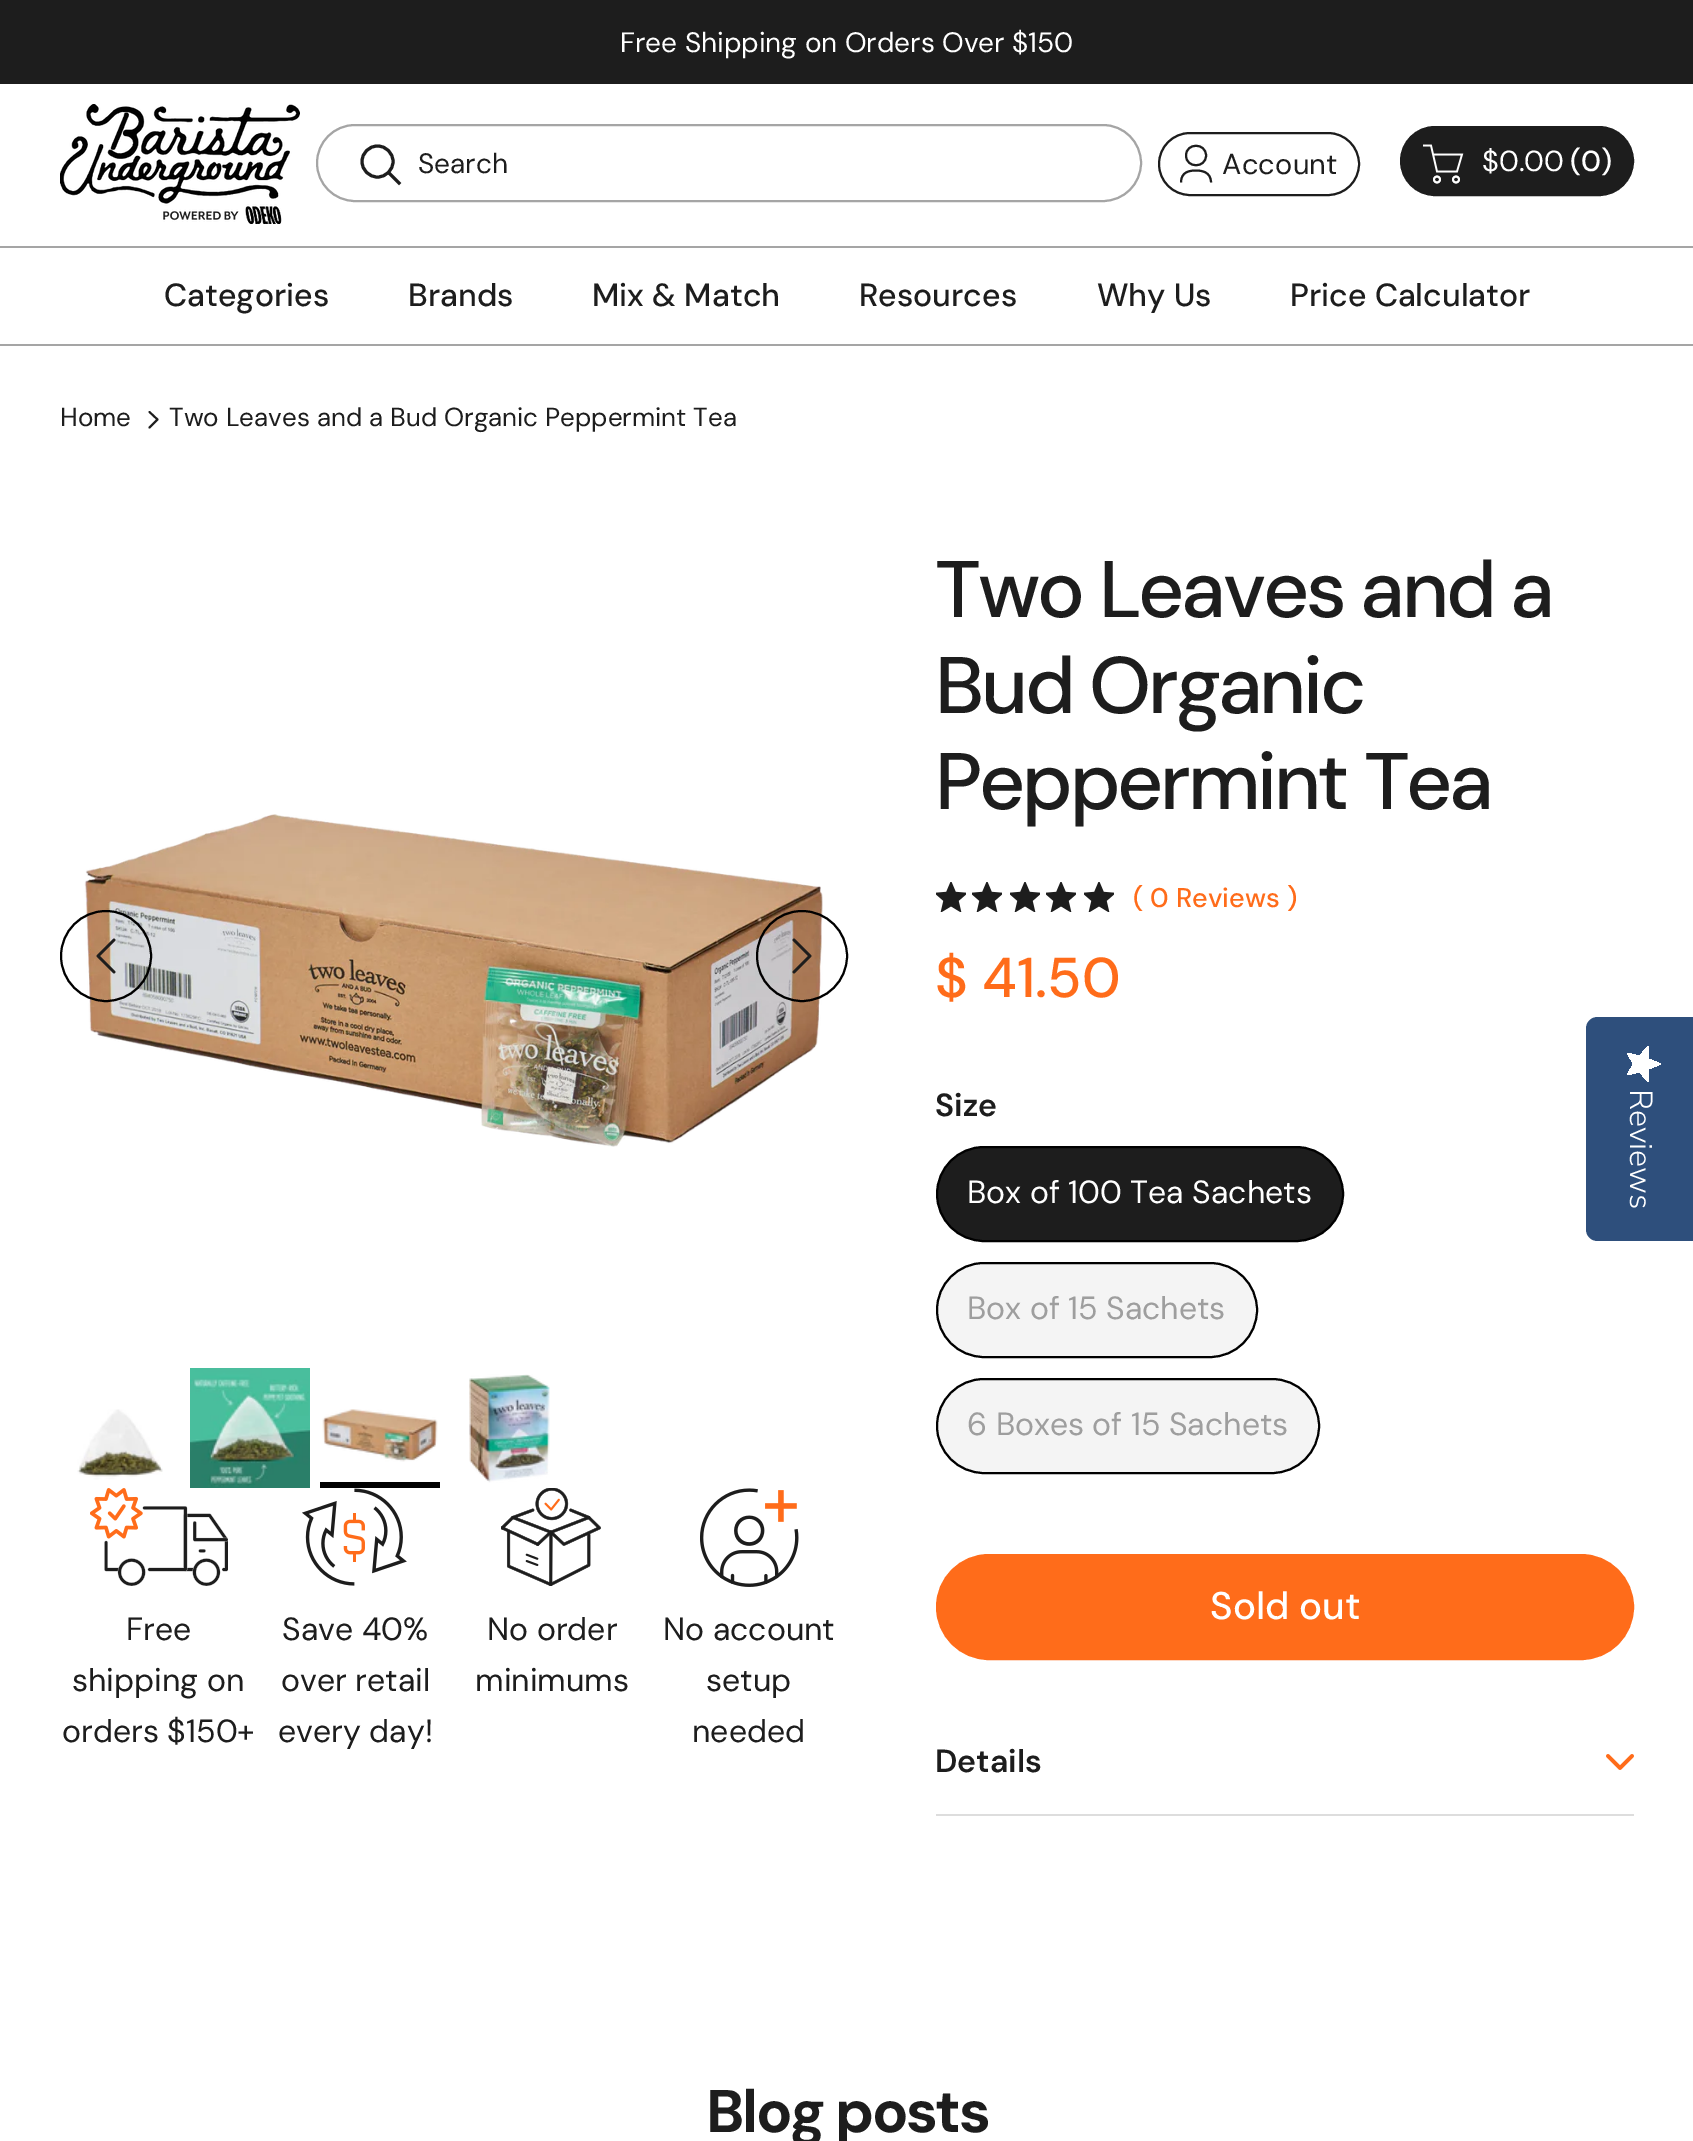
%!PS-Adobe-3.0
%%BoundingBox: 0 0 1693 2141
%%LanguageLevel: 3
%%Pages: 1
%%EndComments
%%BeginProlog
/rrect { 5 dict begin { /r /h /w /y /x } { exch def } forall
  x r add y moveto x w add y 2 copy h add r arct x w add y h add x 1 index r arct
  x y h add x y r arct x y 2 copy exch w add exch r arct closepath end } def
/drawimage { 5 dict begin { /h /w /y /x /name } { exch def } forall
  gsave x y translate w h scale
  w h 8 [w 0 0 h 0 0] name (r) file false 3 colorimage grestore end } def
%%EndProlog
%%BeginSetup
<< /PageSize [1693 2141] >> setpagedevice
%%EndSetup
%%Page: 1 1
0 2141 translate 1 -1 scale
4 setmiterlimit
1 setgray
0 0 1693 2141 rectfill
0.114 setgray
0 0 1693 84 rectfill
0.647 setgray
0 246 1693 2 rectfill
(images/1.raw) 60 104 240 120 drawimage
2 setlinewidth
317 125 824 76 38 rrect stroke
0.114 setgray
3 setlinewidth
newpath 377.5 161.5 15.5 0 360 arc closepath stroke
2 setlinecap
newpath 390 174 moveto 399 183 lineto stroke
2 setlinewidth
0 setlinecap
1159 133 200 62 31 rrect stroke
newpath 1181 182.5 moveto 1181 171.5 1190 170.5 1196 170.5 curveto 1201 170.5 1211 171.5 1211 182.5 curveto 1206 155.5 moveto 1206 168.5 1186 168.5 1186 155.5 curveto 1186 142.5 1206 142.5 1206 155.5 curveto closepath stroke
1401 127 232 68 34 rrect gsave fill grestore
stroke
(images/2.raw) 1423 144 41 40 drawimage
0.647 setgray
0 344 1693 2 rectfill
0.114 setgray
1.9 setlinewidth
1 setlinecap
1 setlinejoin
newpath 149.5 427.5 moveto 157.5 419.5 lineto 149.5 412 lineto stroke
(images/3.raw) 84 814 739 333 drawimage
0 setgray
2 setlinewidth
0 setlinecap
0 setlinejoin
newpath 106 956 45 0 360 arc closepath stroke
0.114 setgray
2.7 setlinewidth
1 setlinecap
1 setlinejoin
newpath 114 972 moveto 98 956 lineto 114 940 lineto stroke
0 setgray
2 setlinewidth
0 setlinecap
0 setlinejoin
newpath 802 956 45 0 360 arc closepath stroke
0.114 setgray
2.7 setlinewidth
1 setlinecap
1 setlinejoin
newpath 794 972 moveto 810 956 lineto 794 940 lineto stroke
(images/4.raw) 77 1409 86 71 drawimage
(images/5.raw) 190 1368 120 120 drawimage
(images/6.raw) 322 1409 116 53 drawimage
0 setgray
320 1482 120 6 rectfill
(images/7.raw) 469 1374 81 109 drawimage
(images/8.raw) 90 1488 138 98 drawimage
(images/9.raw) 302 1488 105 98 drawimage
(images/10.raw) 501 1488 100 98 drawimage
(images/11.raw) 700 1488 99 99 drawimage
(images/12.raw) 936 882 30 30 drawimage
(images/12.raw) 972 882 30 30 drawimage
(images/12.raw) 1010 882 30 30 drawimage
(images/12.raw) 1046 882 30 30 drawimage
(images/12.raw) 1084 882 30 30 drawimage
0.114 setgray
937 1147 406 94 47 rrect gsave fill grestore
0 setgray
2 setlinewidth
0 setlinecap
0 setlinejoin
stroke
0.957 setgray
937 1263 320 94 47 rrect gsave fill grestore
0 setgray
stroke
0.957 setgray
937 1379 382 94 47 rrect gsave fill grestore
0 setgray
stroke
1 0.424 0.102 setrgbcolor
937 1555 696 104 52 rrect gsave fill grestore
stroke
0.867 setgray
936 1814 698 2 rectfill
(images/13.raw) 1606 1754 28 16 drawimage
0.18 0.31 0.486 setrgbcolor
newpath 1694 1017 moveto 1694 1241 lineto 1598 1241 lineto 1591 1241 1586 1236 1586 1229 curveto 1586 1029 lineto 1586 1022 1591 1017 1598 1017 curveto closepath fill
gsave newpath 1633.5 1064 moveto 1627 1075 lineto 1639.5 1072 lineto 1648 1082 lineto 1649 1069 lineto 1661 1064 lineto 1649 1059 lineto 1648 1046 lineto 1639.5 1056 lineto 1627 1053 lineto closepath clip newpath
<< /ShadingType 2 /ColorSpace /DeviceRGB /Coords [1661 1046 1661 1082] /Extend [true true] /Function << /FunctionType 2 /Domain [0 1] /C0 [1 1 1] /C1 [1 1 1] /N 1 >> >> shfill grestore
/DMSans-Regular [28 0 0 -28 0 0] selectfont
1 setgray
620 52 moveto (Free Shipping on Orders Over $150) show
0.114 setgray
418 173 moveto (Search) show
/DMSans-Regular [29 0 0 -29 0 0] selectfont
1222 174 moveto 0.25 0 (Account) ashow
1 setgray
1482 171 moveto ($0.00) show
/DMSans-Medium [29 0 0 -29 0 0] selectfont
1570 171 moveto (\(0\)) show
/DMSans-Medium [32 0 0 -32 0 0] selectfont
0.114 setgray
164 306 moveto (Categories) show
408 306 moveto (Brands) show
592 306 moveto (Mix & Match) show
859 306 moveto (Resources) show
1097 306 moveto (Why Us) show
1290 306 moveto (Price Calculator) show
/DMSans-Regular [26 0 0 -26 0 0] selectfont
60 426 moveto (Home) show
169 426 moveto (Two Leaves and a Bud Organic Peppermint Tea) show
/DMSans-Regular [32 0 0 -32 0 0] selectfont
126 1640 moveto (Free) show
72 1691 moveto (shipping on) show
62 1742 moveto (orders $150+) show
282 1640 moveto (Save 40%) show
281 1691 moveto (over retail) show
278 1742 moveto (every day!) show
487 1640 moveto (No order) show
475 1691 moveto (minimums) show
663 1640 moveto (No account) show
706 1691 moveto (setup) show
692 1742 moveto (needed) show
/DMSans-Medium [80 0 0 -80 0 0] selectfont
935 617 moveto -3.25 0 (Two Leaves and a) ashow
935 713 moveto -3.25 0 (Bud Organic) ashow
935 809 moveto -3.25 0 (Peppermint Tea) ashow
/DMSans-Medium [27 0 0 -27 0 0] selectfont
1 0.424 0.102 setrgbcolor
1133 907 moveto (\( 0 Reviews \)) show
/DMSans-Medium [56 0 0 -56 0 0] selectfont
935 997 moveto ($ 41.50) show
/DMSans-SemiBold [32 0 0 -32 0 0] selectfont
0.114 setgray
935 1116 moveto (Size) show
/DMSans-Regular [32 0 0 -32 0 0] selectfont
1 setgray
967 1203 moveto (Box of 100 Tea Sachets) show
0.62 setgray
967 1319 moveto (Box of 15 Sachets) show
967 1435 moveto (6 Boxes of 15 Sachets) show
/DMSans-Medium [38.5 0 0 -38.5 0 0] selectfont
1 setgray
1210 1619 moveto (Sold out) show
/DMSans-SemiBold [32 0 0 -32 0 0] selectfont
0.114 setgray
935 1772 moveto (Details) show
/DMSans-Bold [60 0 0 -60 0 0] selectfont
706 2132 moveto -2.4 0 (Blog posts) ashow
/NunitoSans-Light [32 0 0 -32 0 0] selectfont
1 setgray
gsave 1630 1089 translate 90 rotate 0 0 moveto (Reviews) show grestore
showpage
%%EOF
